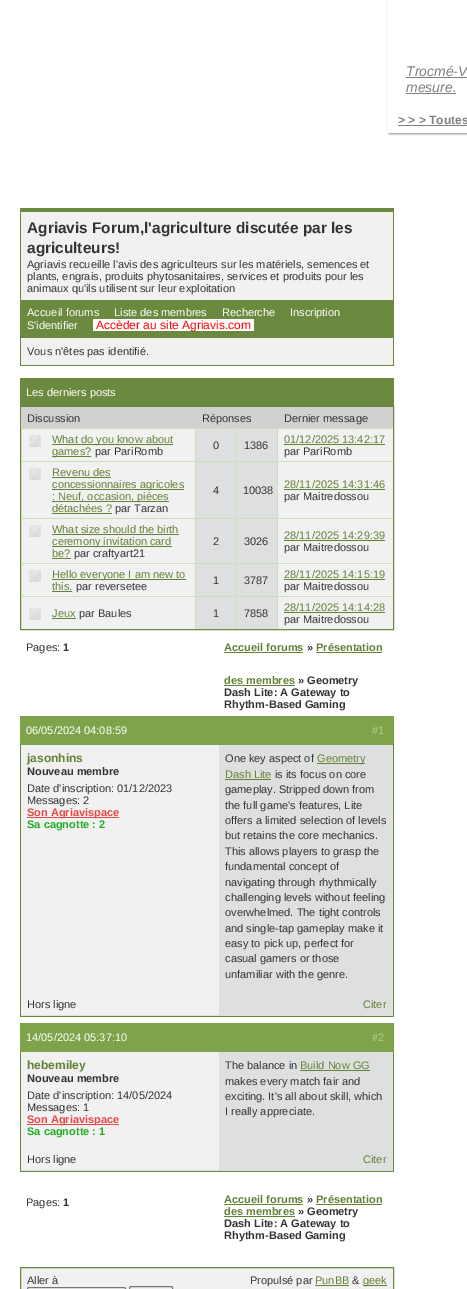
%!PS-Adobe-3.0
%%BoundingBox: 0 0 467 1289
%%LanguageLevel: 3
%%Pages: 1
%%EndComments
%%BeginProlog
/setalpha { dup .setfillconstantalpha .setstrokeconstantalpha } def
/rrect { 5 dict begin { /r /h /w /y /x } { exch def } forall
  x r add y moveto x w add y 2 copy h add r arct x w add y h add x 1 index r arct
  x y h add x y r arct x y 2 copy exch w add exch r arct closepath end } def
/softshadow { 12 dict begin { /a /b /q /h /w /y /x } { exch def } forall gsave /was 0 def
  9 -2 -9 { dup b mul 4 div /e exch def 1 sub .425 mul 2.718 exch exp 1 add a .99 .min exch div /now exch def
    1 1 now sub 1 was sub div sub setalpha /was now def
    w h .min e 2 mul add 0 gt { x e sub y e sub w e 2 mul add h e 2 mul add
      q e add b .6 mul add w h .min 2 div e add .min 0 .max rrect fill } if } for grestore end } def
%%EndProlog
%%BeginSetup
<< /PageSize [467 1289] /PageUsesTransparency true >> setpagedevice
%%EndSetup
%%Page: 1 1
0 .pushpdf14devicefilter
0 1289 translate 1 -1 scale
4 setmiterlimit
1 setgray
0 0 467 1289 rectfill
gsave
newpath 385 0 moveto 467 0 lineto 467 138 lineto 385 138 lineto closepath 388 -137 moveto 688 -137 lineto 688 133 lineto 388 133 lineto closepath eoclip newpath
0.533 setgray
389 -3 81 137 0 1 1 softshadow
grestore
0.502 setgray
406 77 61 1 rectfill
406 93 50 1 rectfill
398 125 69 1 rectfill
0.945 setgray
21 212 372 153 rectfill
0.424 0.541 0.247 setrgbcolor
20 208 374 4 rectfill
393 208 1 158 rectfill
20 365 374 1 rectfill
20 208 1 158 rectfill
21 300 372 38 rectfill
1 setgray
93 319 161 12 rectfill
0.424 0.541 0.247 setrgbcolor
20 378 374 28 rectfill
0.945 setgray
21 429 372 200 rectfill
0.424 0.541 0.247 setrgbcolor
20.5 406.5 373 223 rectstroke
0.82 setgray
21 407 372 21 rectfill
0.902 setgray
newpath 29 435 moveto 41 435 lineto 35 441 lineto closepath fill
0.871 setgray
newpath 41 435 moveto 41 447 lineto 35 441 lineto closepath fill
0.855 setgray
newpath 41 447 moveto 29 447 lineto 35 441 lineto closepath fill
0.886 setgray
newpath 29 447 moveto 29 435 lineto 35 441 lineto closepath fill
0.388 0.506 0.216 setrgbcolor
52 444 121 1 rectfill
52 456 39 1 rectfill
0.871 0.875 0.875 setrgbcolor
196 429 40 32 rectfill
0.808 0.871 0.725 setrgbcolor
21 428 372 1 rectfill
195 428 1 33 rectfill
0.871 0.875 0.875 setrgbcolor
237 429 40 32 rectfill
0.808 0.871 0.725 setrgbcolor
236 428 1 33 rectfill
21 461 372 1 rectfill
21 518 372 1 rectfill
21 563 372 1 rectfill
21 596 372 1 rectfill
277 428 1 201 rectfill
0.388 0.506 0.216 setrgbcolor
284 444 101 1 rectfill
0.902 setgray
newpath 29 468 moveto 41 468 lineto 35 474 lineto closepath fill
0.871 setgray
newpath 41 468 moveto 41 480 lineto 35 474 lineto closepath fill
0.855 setgray
newpath 41 480 moveto 29 480 lineto 35 474 lineto closepath fill
0.886 setgray
newpath 29 480 moveto 29 468 lineto 35 474 lineto closepath fill
0.388 0.506 0.216 setrgbcolor
52 477 59 1 rectfill
52 489 132 1 rectfill
52 501 117 1 rectfill
52 513 60 1 rectfill
0.871 0.875 0.875 setrgbcolor
196 462 40 56 rectfill
0.808 0.871 0.725 setrgbcolor
195 461 1 57 rectfill
0.871 0.875 0.875 setrgbcolor
237 462 40 56 rectfill
0.808 0.871 0.725 setrgbcolor
236 461 1 57 rectfill
0.388 0.506 0.216 setrgbcolor
284 489 101 1 rectfill
0.902 setgray
newpath 29 525 moveto 41 525 lineto 35 531 lineto closepath fill
0.871 setgray
newpath 41 525 moveto 41 537 lineto 35 531 lineto closepath fill
0.855 setgray
newpath 41 537 moveto 29 537 lineto 35 531 lineto closepath fill
0.886 setgray
newpath 29 537 moveto 29 525 lineto 35 531 lineto closepath fill
0.388 0.506 0.216 setrgbcolor
52 534 127 1 rectfill
52 546 120 1 rectfill
52 558 19 1 rectfill
0.871 0.875 0.875 setrgbcolor
196 519 40 44 rectfill
0.808 0.871 0.725 setrgbcolor
195 518 1 45 rectfill
0.871 0.875 0.875 setrgbcolor
237 519 40 44 rectfill
0.808 0.871 0.725 setrgbcolor
236 518 1 45 rectfill
0.388 0.506 0.216 setrgbcolor
284 540 101 1 rectfill
0.902 setgray
newpath 29 570 moveto 41 570 lineto 35 576 lineto closepath fill
0.871 setgray
newpath 41 570 moveto 41 582 lineto 35 576 lineto closepath fill
0.855 setgray
newpath 41 582 moveto 29 582 lineto 35 576 lineto closepath fill
0.886 setgray
newpath 29 582 moveto 29 570 lineto 35 576 lineto closepath fill
0.388 0.506 0.216 setrgbcolor
52 579 134 1 rectfill
52 591 20 1 rectfill
0.871 0.875 0.875 setrgbcolor
196 564 40 32 rectfill
0.808 0.871 0.725 setrgbcolor
195 563 1 33 rectfill
0.871 0.875 0.875 setrgbcolor
237 564 40 32 rectfill
0.808 0.871 0.725 setrgbcolor
236 563 1 33 rectfill
0.388 0.506 0.216 setrgbcolor
284 579 101 1 rectfill
0.902 setgray
newpath 29 608 moveto 41 608 lineto 35 614 lineto closepath fill
0.871 setgray
newpath 41 608 moveto 41 620 lineto 35 614 lineto closepath fill
0.855 setgray
newpath 41 620 moveto 29 620 lineto 35 614 lineto closepath fill
0.886 setgray
newpath 29 620 moveto 29 608 lineto 35 614 lineto closepath fill
0.388 0.506 0.216 setrgbcolor
52 618 24 1 rectfill
0.871 0.875 0.875 setrgbcolor
196 597 40 32 rectfill
0.808 0.871 0.725 setrgbcolor
195 596 1 33 rectfill
0.871 0.875 0.875 setrgbcolor
237 597 40 32 rectfill
0.808 0.871 0.725 setrgbcolor
236 596 1 33 rectfill
0.388 0.506 0.216 setrgbcolor
284 612 101 1 rectfill
224 652 79 1 rectfill
316 652 66 1 rectfill
224 685 71 1 rectfill
0.494 0.639 0.294 setrgbcolor
20 716 374 29 rectfill
0.871 0.875 0.875 setrgbcolor
21 745 372 271 rectfill
0.424 0.541 0.247 setrgbcolor
393 744 1 273 rectfill
20 1016 374 1 rectfill
20 744 1 273 rectfill
0.945 setgray
21 745 198 270 rectfill
0.902 0.282 0.282 setrgbcolor
27 817 92 1 rectfill
0.388 0.506 0.216 setrgbcolor
317 763 48 1 rectfill
225 779 46 1 rectfill
0.494 0.639 0.294 setrgbcolor
20 1023 374 29 rectfill
0.871 0.875 0.875 setrgbcolor
21 1052 372 119 rectfill
0.424 0.541 0.247 setrgbcolor
393 1051 1 121 rectfill
20 1171 374 1 rectfill
20 1051 1 121 rectfill
0.945 setgray
21 1052 198 118 rectfill
0.902 0.282 0.282 setrgbcolor
27 1124 92 1 rectfill
0.388 0.506 0.216 setrgbcolor
300 1070 70 1 rectfill
224 1204 79 1 rectfill
316 1204 66 1 rectfill
224 1216 71 1 rectfill
0.945 setgray
newpath 20.5 1267.5 moveto 393.5 1267.5 lineto 393.5 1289.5 lineto 20.5 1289.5 lineto closepath gsave fill grestore
0.424 0.541 0.247 setrgbcolor
stroke
1 setgray
27.5 1287.5 98 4 1.5 rrect gsave fill grestore
0.463 setgray
stroke
129.5 1286.5 43 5 1.5 rrect stroke
0.388 0.506 0.216 setrgbcolor
315 1285 34 1 rectfill
363 1285 24 1 rectfill
/LiberationSans-Italic [14 0 0 -14 0 0] selectfont
0.502 setgray
406 76 moveto 11 0 32 (Trocmé-V) widthshow
406 92 moveto (mesure.) show
/LiberationSans-Bold [12 0 0 -12 0 0] selectfont
398 124 moveto (> > > Toutes) show
/LiberationSans-Bold [15.4 0 0 -15.4 0 0] selectfont
0.2 setgray
27 233 moveto (Agriavis Forum,l'agriculture discutée par les) show
27 253 moveto (agriculteurs!) show
/LiberationSans-Regular [11 0 0 -11 0 0] selectfont
27 268 moveto (Agriavis recueille l'avis des agriculteurs sur les matériels, semences et) show
27 280 moveto (plants, engrais, produits phytosanitaires, services et produits pour les) show
27 292 moveto (animaux qu'ils utilisent sur leur exploitation) show
1 setgray
27 316 moveto (Accueil forums) show
114 316 moveto (Liste des membres) show
222 316 moveto (Recherche) show
290 316 moveto (Inscription) show
27 329 moveto (S'identifier) show
/LiberationSans-Regular [12 0 0 -12 0 0] selectfont
1 0 0 setrgbcolor
96 329 moveto (Accèder au site Agriavis.com) show
/LiberationSans-Regular [11 0 0 -11 0 0] selectfont
0.2 setgray
27 355 moveto (Vous n'êtes pas identifié.) show
1 setgray
26 396 moveto (Les derniers posts) show
0.2 setgray
27 422 moveto (Discussion) show
202 422 moveto (Réponses) show
284 422 moveto (Dernier message) show
0.388 0.506 0.216 setrgbcolor
52 443 moveto (What do you know about) show
52 455 moveto (games?) show
0.2 setgray
95 455 moveto (par PariRomb) show
213 449 moveto (0) show
244 449 moveto (1386) show
0.388 0.506 0.216 setrgbcolor
284 443 moveto (01/12/2025 13:42:17) show
0.2 setgray
284 455 moveto (par PariRomb) show
0.388 0.506 0.216 setrgbcolor
52 476 moveto (Revenu des) show
52 488 moveto (concessionnaires agricoles) show
52 500 moveto (: Neuf, occasion, pièces) show
52 512 moveto (détachées ?) show
0.2 setgray
115 512 moveto (par Tarzan) show
213 494 moveto (4) show
243 494 moveto (10038) show
0.388 0.506 0.216 setrgbcolor
284 488 moveto (28/11/2025 14:31:46) show
0.2 setgray
284 500 moveto (par Maitredossou) show
0.388 0.506 0.216 setrgbcolor
52 533 moveto (What size should the birth) show
52 545 moveto (ceremony invitation card) show
52 557 moveto (be?) show
0.2 setgray
74 557 moveto (par craftyart21) show
213 545 moveto (2) show
244 545 moveto (3026) show
0.388 0.506 0.216 setrgbcolor
284 539 moveto (28/11/2025 14:29:39) show
0.2 setgray
284 551 moveto (par Maitredossou) show
0.388 0.506 0.216 setrgbcolor
52 578 moveto (Hello everyone I am new to) show
52 590 moveto (this.) show
0.2 setgray
76 590 moveto (par reversetee) show
213 584 moveto (1) show
244 584 moveto (3787) show
0.388 0.506 0.216 setrgbcolor
284 578 moveto (28/11/2025 14:15:19) show
0.2 setgray
284 590 moveto (par Maitredossou) show
0.388 0.506 0.216 setrgbcolor
52 617 moveto (Jeux) show
0.2 setgray
79 617 moveto (par Baules) show
213 617 moveto (1) show
244 617 moveto (7858) show
0.388 0.506 0.216 setrgbcolor
284 611 moveto (28/11/2025 14:14:28) show
0.2 setgray
284 623 moveto (par Maitredossou) show
26 651 moveto (Pages:) show
/LiberationSans-Bold [11 0 0 -11 0 0] selectfont
63 651 moveto (1) show
0.388 0.506 0.216 setrgbcolor
224 651 moveto (Accueil forums) show
0.2 setgray
307 651 moveto (») show
0.388 0.506 0.216 setrgbcolor
316 651 moveto (Présentation) show
224 684 moveto (des membres) show
0.2 setgray
298 684 moveto (» Geometry) show
224 696 moveto (Dash Lite: A Gateway to) show
224 708 moveto (Rhythm-Based Gaming) show
/LiberationSans-Regular [11 0 0 -11 0 0] selectfont
1 setgray
26 734 moveto (06/05/2024 04:08:59) show
0.718 0.816 0.58 setrgbcolor
372 734 moveto (#1) show
/LiberationSans-Bold [12 0 0 -12 0 0] selectfont
0.388 0.506 0.216 setrgbcolor
27 762 moveto (jasonhins) show
/LiberationSans-Bold [11 0 0 -11 0 0] selectfont
0.2 setgray
27 775 moveto (Nouveau membre) show
/LiberationSans-Regular [11 0 0 -11 0 0] selectfont
27 792 moveto (Date d'inscription: 01/12/2023) show
27 804 moveto (Messages: 2) show
/LiberationSans-Bold [11 0 0 -11 0 0] selectfont
0.902 0.282 0.282 setrgbcolor
27 816 moveto (Son Agriavispace) show
0.137 0.671 0.137 setrgbcolor
27 828 moveto (Sa cagnotte : 2) show
/LiberationSans-Regular [11 0 0 -11 0 0] selectfont
0.2 setgray
225 762 moveto (One key aspect of) show
0.388 0.506 0.216 setrgbcolor
317 762 moveto (Geometry) show
225 778 moveto (Dash Lite) show
0.2 setgray
275 778 moveto (is its focus on core) show
225 793 moveto (gameplay. Stripped down from) show
225 809 moveto (the full game's features, Lite) show
225 824 moveto (offers a limited selection of levels) show
225 839 moveto (but retains the core mechanics.) show
225 855 moveto (This allows players to grasp the) show
225 870 moveto (fundamental concept of) show
225 886 moveto (navigating through rhythmically) show
225 901 moveto (challenging levels without feeling) show
225 916 moveto (overwhelmed. The tight controls) show
225 932 moveto (and single-tap gameplay make it) show
225 947 moveto (easy to pick up, perfect for) show
225 962 moveto (casual gamers or those) show
225 978 moveto (unfamiliar with the genre.) show
27 1008 moveto (Hors ligne) show
0.388 0.506 0.216 setrgbcolor
363 1008 moveto (Citer) show
1 setgray
26 1041 moveto (14/05/2024 05:37:10) show
0.718 0.816 0.58 setrgbcolor
372 1041 moveto (#2) show
/LiberationSans-Bold [12 0 0 -12 0 0] selectfont
0.388 0.506 0.216 setrgbcolor
27 1069 moveto (hebemiley) show
/LiberationSans-Bold [11 0 0 -11 0 0] selectfont
0.2 setgray
27 1082 moveto (Nouveau membre) show
/LiberationSans-Regular [11 0 0 -11 0 0] selectfont
27 1099 moveto (Date d'inscription: 14/05/2024) show
27 1111 moveto (Messages: 1) show
/LiberationSans-Bold [11 0 0 -11 0 0] selectfont
0.902 0.282 0.282 setrgbcolor
27 1123 moveto (Son Agriavispace) show
0.137 0.671 0.137 setrgbcolor
27 1135 moveto (Sa cagnotte : 1) show
/LiberationSans-Regular [11 0 0 -11 0 0] selectfont
0.2 setgray
225 1069 moveto (The balance in) show
0.388 0.506 0.216 setrgbcolor
300 1069 moveto (Build Now GG) show
0.2 setgray
225 1085 moveto (makes every match fair and) show
225 1100 moveto (exciting. It's all about skill, which) show
225 1115 moveto (I really appreciate.) show
27 1163 moveto (Hors ligne) show
0.388 0.506 0.216 setrgbcolor
363 1163 moveto (Citer) show
0.2 setgray
26 1206 moveto (Pages:) show
/LiberationSans-Bold [11 0 0 -11 0 0] selectfont
63 1206 moveto (1) show
0.388 0.506 0.216 setrgbcolor
224 1203 moveto (Accueil forums) show
0.2 setgray
307 1203 moveto (») show
0.388 0.506 0.216 setrgbcolor
316 1203 moveto (Présentation) show
224 1215 moveto (des membres) show
0.2 setgray
298 1215 moveto (» Geometry) show
224 1227 moveto (Dash Lite: A Gateway to) show
224 1239 moveto (Rhythm-Based Gaming) show
/LiberationSans-Regular [11 0 0 -11 0 0] selectfont
27 1284 moveto (Aller à) show
250 1284 moveto (Propulsé par) show
0.388 0.506 0.216 setrgbcolor
315 1284 moveto (PunBB) show
0.2 setgray
352 1284 moveto (&) show
0.388 0.506 0.216 setrgbcolor
363 1284 moveto (geek) show
.poppdf14devicefilter showpage
%%EOF
